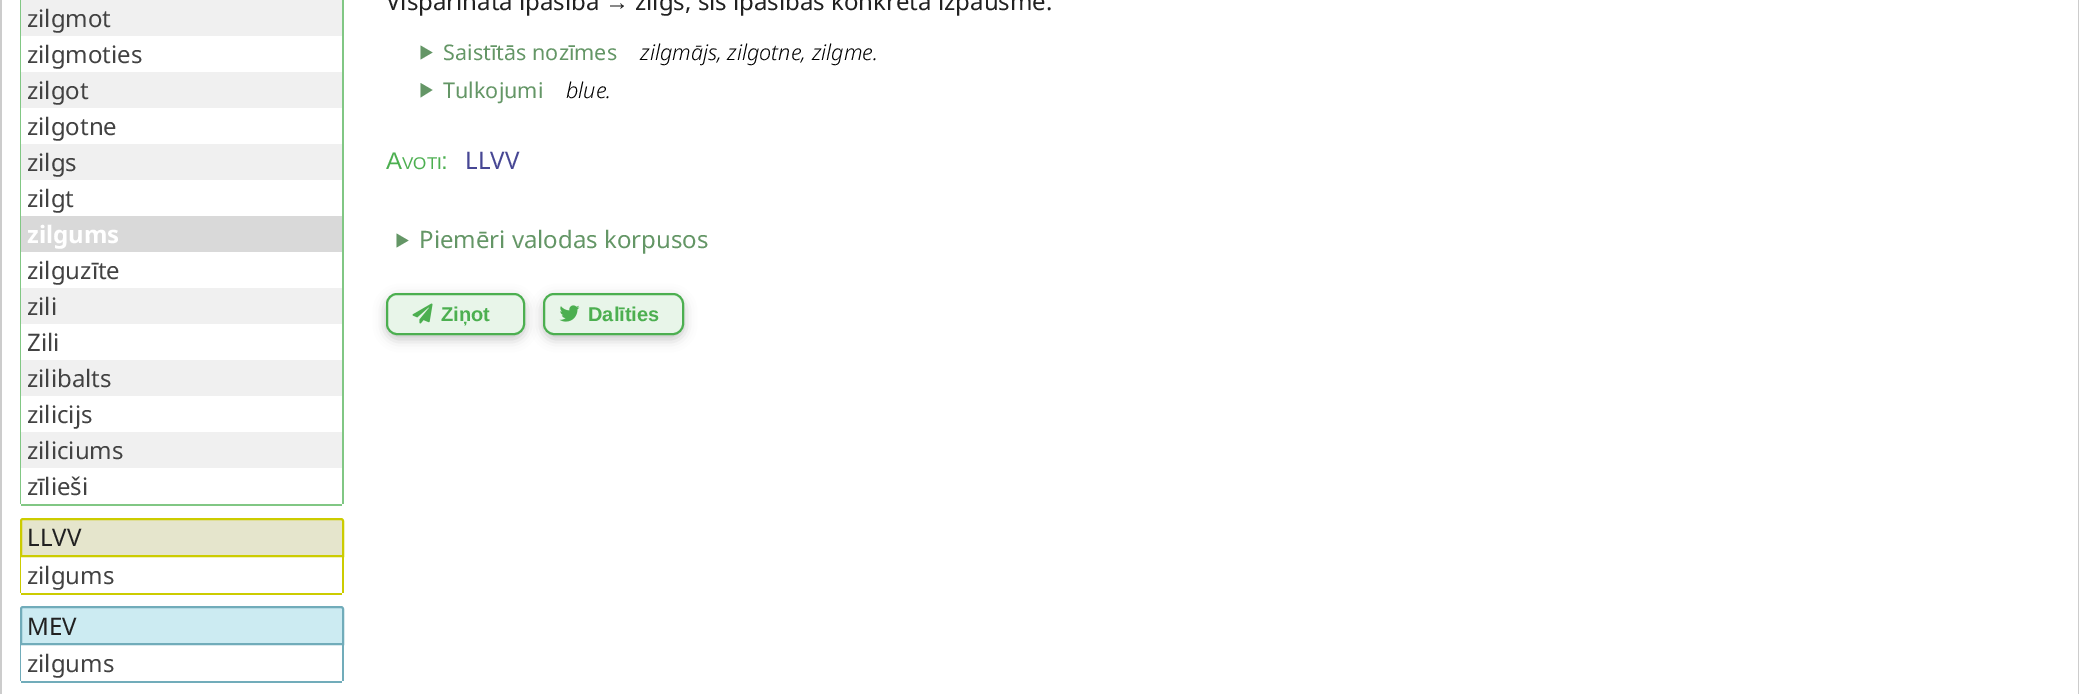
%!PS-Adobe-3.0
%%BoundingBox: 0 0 2079 694
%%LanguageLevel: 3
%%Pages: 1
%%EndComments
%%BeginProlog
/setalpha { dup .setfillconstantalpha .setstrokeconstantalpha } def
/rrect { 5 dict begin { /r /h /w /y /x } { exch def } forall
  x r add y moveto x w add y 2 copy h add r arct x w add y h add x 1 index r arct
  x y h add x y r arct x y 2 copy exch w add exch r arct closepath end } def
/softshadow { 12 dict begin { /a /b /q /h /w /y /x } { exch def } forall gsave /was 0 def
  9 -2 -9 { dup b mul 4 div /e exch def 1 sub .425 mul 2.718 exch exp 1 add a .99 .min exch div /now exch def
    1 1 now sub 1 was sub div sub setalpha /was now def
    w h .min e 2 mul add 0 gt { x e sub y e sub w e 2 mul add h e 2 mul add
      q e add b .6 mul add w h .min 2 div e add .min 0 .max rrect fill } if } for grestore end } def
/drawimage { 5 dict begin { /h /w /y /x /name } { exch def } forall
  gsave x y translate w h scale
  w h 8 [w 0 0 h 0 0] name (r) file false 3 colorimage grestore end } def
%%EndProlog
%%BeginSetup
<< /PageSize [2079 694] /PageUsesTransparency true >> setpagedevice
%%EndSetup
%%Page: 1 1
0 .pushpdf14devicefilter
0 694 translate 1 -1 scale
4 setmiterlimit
1 setgray
0 0 2079 694 rectfill
0.8 setgray
2078 0 1 694 rectfill
0 0 2 694 rectfill
0.506 0.78 0.518 setrgbcolor
342 0 2 504 rectfill
21 504 321 2 rectfill
20 0 1 504 rectfill
0.941 setgray
21 0 321 36 rectfill
21 72 321 36 rectfill
21 144 321 36 rectfill
0.851 setgray
21 216 321 36 rectfill
0.941 setgray
21 288 321 36 rectfill
21 360 321 36 rectfill
21 432 321 36 rectfill
0.898 0.898 0.8 setrgbcolor
newpath 23 519 moveto 341 519 lineto 342 519 343 520 343 521 curveto 343 556 lineto 21 556 lineto 21 521 lineto 21 520 22 519 23 519 curveto closepath gsave fill grestore
0.8 0.8 0 setrgbcolor
2 setlinewidth
stroke
342 557 2 36 rectfill
21 593 321 2 rectfill
20 557 1 36 rectfill
0.8 0.922 0.949 setrgbcolor
newpath 23 607 moveto 341 607 lineto 342 607 343 608 343 609 curveto 343 644 lineto 21 644 lineto 21 609 lineto 21 608 22 607 23 607 curveto closepath gsave fill grestore
0.443 0.675 0.729 setrgbcolor
stroke
342 645 2 36 rectfill
21 681 321 2 rectfill
20 645 1 36 rectfill
0.392 0.588 0.4 setrgbcolor
newpath 420.5 45.5 moveto 432.5 52.5 lineto 420.5 59.5 lineto closepath fill
newpath 420.5 83 moveto 432.5 90 lineto 420.5 97.5 lineto closepath fill
newpath 396.5 233.5 moveto 408.5 240.5 lineto 396.5 247.5 lineto closepath fill
0 setgray
386 297 139 42 11 6 0.24 softshadow
0.91 0.961 0.914 setrgbcolor
387 294 137 40 10 rrect gsave fill grestore
0.298 0.686 0.314 setrgbcolor
stroke
(images/1.raw) 412 303 21 21 drawimage
0 setgray
543 297 141 42 11 6 0.24 softshadow
0.91 0.961 0.914 setrgbcolor
544 294 139 40 10 rrect gsave fill grestore
0.298 0.686 0.314 setrgbcolor
stroke
(images/2.raw) 559 305 21 17 drawimage
/NotoSans-Regular [24 0 0 -24 0 0] selectfont
0.259 setgray
27 27 moveto (zilgmot) show
27 63 moveto (zilgmoties) show
27 99 moveto (zilgot) show
27 135 moveto (zilgotne) show
27 171 moveto (zilgs) show
27 207 moveto (zilgt) show
/NotoSans-Bold [24 0 0 -24 0 0] selectfont
1 setgray
27 243 moveto (zilgums) show
/NotoSans-Regular [24 0 0 -24 0 0] selectfont
0.259 setgray
27 279 moveto (zilguzīte) show
27 315 moveto (zili) show
27 351 moveto (Zili) show
27 387 moveto (zilibalts) show
27 423 moveto (zilicijs) show
27 459 moveto (ziliciums) show
27 495 moveto (zīlieši) show
0.129 setgray
27 546 moveto (LLVV) show
0.259 setgray
27 584 moveto (zilgums) show
0.129 setgray
27 635 moveto (MEV) show
0.259 setgray
27 672 moveto (zilgums) show
0.129 setgray
386 10 moveto (Vispārināta īpašība) show
/LiberationSans-Regular [24 0 0 -24 0 0] selectfont
605 10 moveto (→) show
/NotoSans-Regular [24 0 0 -24 0 0] selectfont
635 10 moveto (zilgs, šīs īpašības konkrēta izpausme.) show
/NotoSans-Regular [21.6 0 0 -21.6 0 0] selectfont
0.392 0.588 0.4 setrgbcolor
443 60 moveto (Saistītās nozīmes) show
/NotoSans-LightItalic [21.6 0 0 -21.6 0 0] selectfont
0 setgray
640 60 moveto (zilgmājs, zilgotne, zilgme.) show
/NotoSans-Regular [21.6 0 0 -21.6 0 0] selectfont
0.392 0.588 0.4 setrgbcolor
443 98 moveto (Tulkojumi) show
/NotoSans-LightItalic [21.6 0 0 -21.6 0 0] selectfont
0 setgray
566 98 moveto (blue.) show
/LiberationSans-Regular [24 0 0 -24 0 0] selectfont
0.298 0.686 0.314 setrgbcolor
386 169 moveto (A) show
/LiberationSans-Regular [17 0 0 -17 0 0] selectfont
402 169 moveto (VOTI) show
/LiberationSans-Regular [24 0 0 -24 0 0] selectfont
441 169 moveto (:) show
/NotoSans-Regular [24 0 0 -24 0 0] selectfont
0.278 0.278 0.58 setrgbcolor
465 169 moveto (LLVV) show
0.392 0.588 0.4 setrgbcolor
419 248 moveto (Piemēri valodas korpusos) show
/LiberationSans-Bold [20 0 0 -20 0 0] selectfont
0.298 0.686 0.314 setrgbcolor
441 321 moveto (Ziņot) show
588 321 moveto (Dalīties) show
.poppdf14devicefilter showpage
%%EOF
